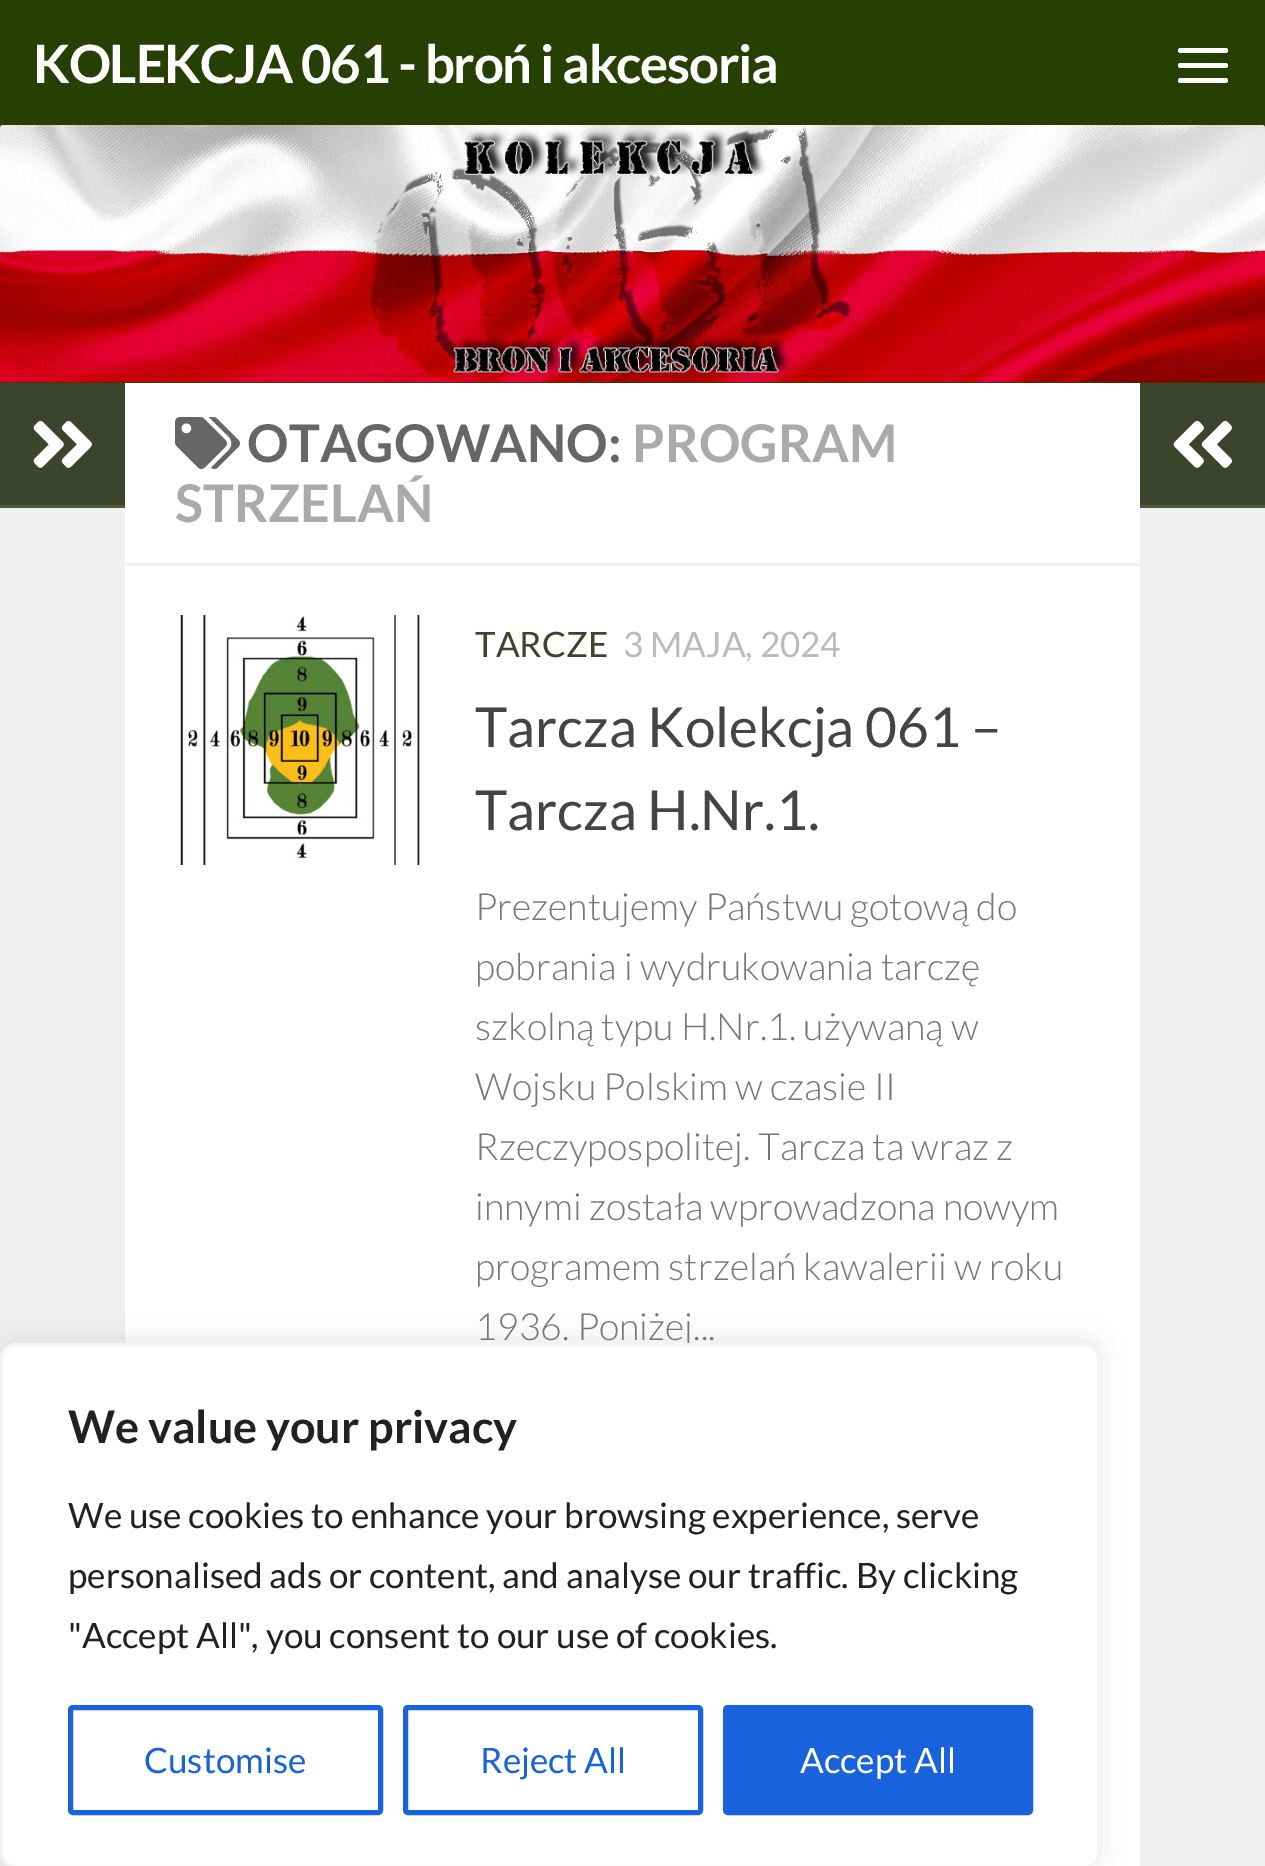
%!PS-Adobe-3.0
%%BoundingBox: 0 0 1265 1866
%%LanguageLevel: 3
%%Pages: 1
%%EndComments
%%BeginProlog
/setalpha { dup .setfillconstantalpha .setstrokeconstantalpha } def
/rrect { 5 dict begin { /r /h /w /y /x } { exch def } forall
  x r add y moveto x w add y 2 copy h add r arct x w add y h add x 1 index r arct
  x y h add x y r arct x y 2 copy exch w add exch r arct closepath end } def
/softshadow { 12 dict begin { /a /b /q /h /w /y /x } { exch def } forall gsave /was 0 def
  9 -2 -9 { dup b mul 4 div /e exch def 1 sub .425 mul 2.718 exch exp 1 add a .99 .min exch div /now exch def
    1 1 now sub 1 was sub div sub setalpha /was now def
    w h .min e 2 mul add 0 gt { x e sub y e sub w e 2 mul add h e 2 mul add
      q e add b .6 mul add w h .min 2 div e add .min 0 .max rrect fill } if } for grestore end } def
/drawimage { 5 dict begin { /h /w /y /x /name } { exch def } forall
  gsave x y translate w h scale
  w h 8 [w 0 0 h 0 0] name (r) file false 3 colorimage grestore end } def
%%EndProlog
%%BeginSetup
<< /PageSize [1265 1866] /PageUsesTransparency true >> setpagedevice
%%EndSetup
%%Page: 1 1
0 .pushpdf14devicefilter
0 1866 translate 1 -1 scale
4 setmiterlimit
1 setgray
0 0 1265 1866 rectfill
0.149 0.247 0.008 setrgbcolor
0 0 1265 383 rectfill
1 setgray
1178 48 50 5 2.5 rrect fill
1178 63 50 5 2.5 rrect fill
1178 78 50 5 2.5 rrect fill
(images/1.raw) 0 125 1265 258 drawimage
0.941 setgray
0 508 125 1358 rectfill
0.235 0.271 0.169 setrgbcolor
0 383 125 122 rectfill
0.314 0.345 0.251 setrgbcolor
0 505 125 3 rectfill
(images/2.raw) 33 421 59 47 drawimage
0.933 setgray
125 563 1015 3 rectfill
(images/3.raw) 175 417 65 52 drawimage
(images/4.raw) 180 615 240 250 drawimage
0.235 0.271 0.169 setrgbcolor
1140 383 125 122 rectfill
0.314 0.345 0.251 setrgbcolor
1140 505 125 3 rectfill
(images/5.raw) 1173 421 59 47 drawimage
0.941 setgray
1140 508 125 1358 rectfill
0.675 0.671 0.671 setrgbcolor
0 1340 1100 525 15 12.5 0.3 softshadow
/Lato-Bold [52.75 0 0 -52.75 0 0] selectfont
1 setgray
33 83 moveto -1.25 0 (KOLEKCJA 061 - broń i akcesoria) ashow
/Lato-Bold [52 0 0 -52 0 0] selectfont
0.4 setgray
247 462 moveto (OTAGOWANO:) show
0.667 setgray
632 462 moveto (PROGRAM) show
175 522 moveto (STRZELAŃ) show
/Lato-Regular [35 0 0 -35 0 0] selectfont
0.235 0.271 0.169 setrgbcolor
475 657 moveto (TARCZE) show
0.733 setgray
623 657 moveto (3 MAJA, 2024) show
/Lato-Regular [55 0 0 -55 0 0] selectfont
0.267 setgray
475 747 moveto (Tarcza Kolekcja 061 –) show
475 830 moveto (Tarcza H.Nr.1.) show
/Lato-Light [37.5 0 0 -37.5 0 0] selectfont
0.463 setgray
475 920 moveto (Prezentujemy Państwu gotową do) show
475 980 moveto (pobrania i wydrukowania tarczę) show
475 1040 moveto (szkolną typu H.Nr.1. używaną w) show
475 1100 moveto (Wojsku Polskim w czasie II) show
475 1160 moveto (Rzeczypospolitej. Tarcza ta wraz z) show
475 1220 moveto (innymi została wprowadzona nowym) show
475 1280 moveto (programem strzelań kawalerii w roku) show
475 1340 moveto (1936. Poniżej...) show
1 setgray
1.5 1344.5 1097 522 13.5 rrect gsave fill grestore
0.957 setgray
3 setlinewidth
stroke
/Lato-Bold [45 0 0 -45 0 0] selectfont
0.129 setgray
68 1443 moveto (We value your privacy) show
/Lato-Regular [35 0 0 -35 0 0] selectfont
68 1528 moveto (We use cookies to enhance your browsing experience, serve) show
68 1588 moveto (personalised ads or content, and analyse our traffic. By clicking) show
68 1648 moveto ("Accept All", you consent to our use of cookies.) show
0.094 0.388 0.863 setrgbcolor
5 setlinewidth
70.5 1707.5 310 105 2.5 rrect stroke
144 1773 moveto (Customise) show
405.5 1707.5 295 105 2.5 rrect stroke
480 1773 moveto (Reject All) show
725.5 1707.5 305 105 2.5 rrect gsave fill grestore
stroke
1 setgray
800 1773 moveto (Accept All) show
.poppdf14devicefilter showpage
%%EOF
